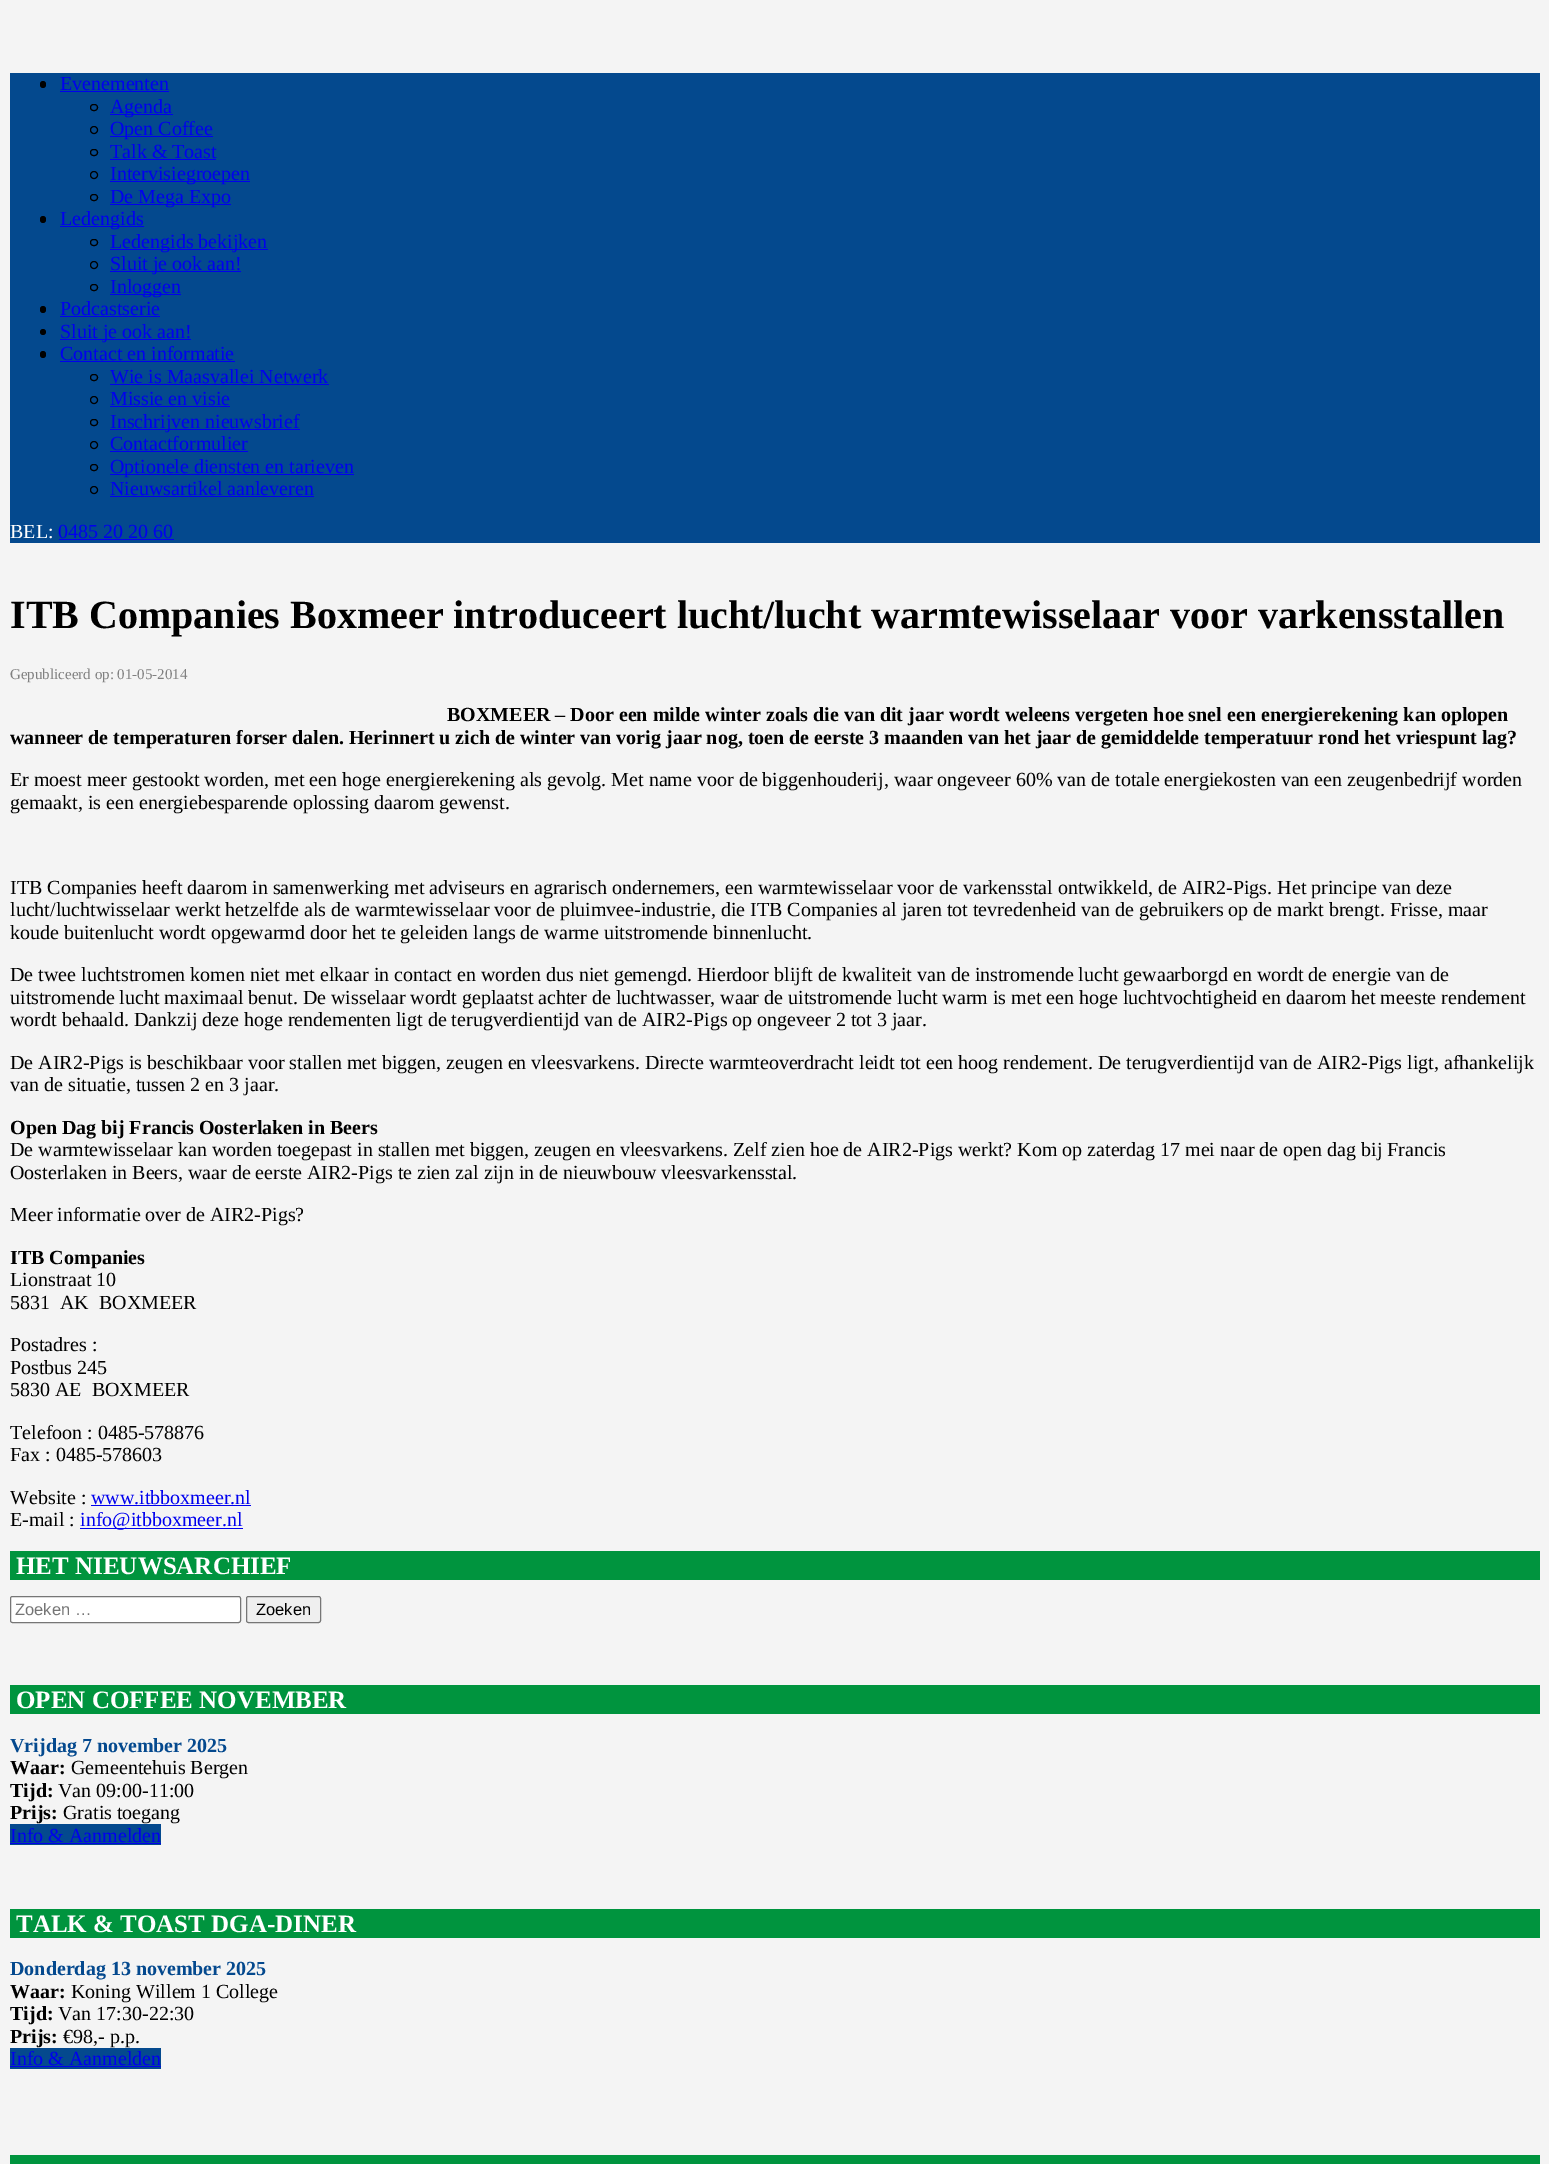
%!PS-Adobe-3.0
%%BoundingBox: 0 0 1549 2164
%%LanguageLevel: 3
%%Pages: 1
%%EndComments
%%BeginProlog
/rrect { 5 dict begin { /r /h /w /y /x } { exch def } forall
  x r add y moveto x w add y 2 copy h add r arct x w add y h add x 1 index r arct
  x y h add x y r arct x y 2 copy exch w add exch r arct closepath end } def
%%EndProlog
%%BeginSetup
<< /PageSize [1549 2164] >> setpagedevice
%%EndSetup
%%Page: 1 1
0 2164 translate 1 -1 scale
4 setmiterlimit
0.957 setgray
0 0 1549 2164 rectfill
0.016 0.286 0.557 setrgbcolor
10 73 1530 470 rectfill
0 setgray
40 81 6 7 3 rrect fill
0 0 0.933 setrgbcolor
60 91 109 1 rectfill
0 setgray
90.5 104.5 7 6 3 rrect stroke
0 0 0.933 setrgbcolor
110 114 63 1 rectfill
0 setgray
newpath 94 130 3.5 0 360 arc closepath stroke
0 0 0.933 setrgbcolor
110 136 103 1 rectfill
0 setgray
90.5 149.5 7 6 3 rrect stroke
0 0 0.933 setrgbcolor
110 159 106 1 rectfill
0 setgray
newpath 94 175 3.5 0 360 arc closepath stroke
0 0 0.933 setrgbcolor
110 181 140 1 rectfill
0 setgray
90.5 194.5 7 6 3 rrect stroke
0 0 0.933 setrgbcolor
110 204 121 1 rectfill
0 setgray
40 216 6 7 3 rrect fill
0 0 0.933 setrgbcolor
60 226 84 1 rectfill
0 setgray
90.5 239.5 7 6 3 rrect stroke
0 0 0.933 setrgbcolor
110 249 158 1 rectfill
0 setgray
newpath 94 265 3.5 0 360 arc closepath stroke
0 0 0.933 setrgbcolor
110 271 131 1 rectfill
0 setgray
90.5 284.5 7 6 3 rrect stroke
0 0 0.933 setrgbcolor
110 294 71 1 rectfill
0 setgray
40 306 6 7 3 rrect fill
0 0 0.933 setrgbcolor
60 316 100 1 rectfill
0 setgray
newpath 43 332 3 0 360 arc closepath fill
0 0 0.933 setrgbcolor
60 339 131 1 rectfill
0 setgray
40 351 6 7 3 rrect fill
0 0 0.933 setrgbcolor
60 361 175 1 rectfill
0 setgray
90.5 374.5 7 6 3 rrect stroke
0 0 0.933 setrgbcolor
110 384 219 1 rectfill
0 setgray
newpath 94 400 3.5 0 360 arc closepath stroke
0 0 0.933 setrgbcolor
110 406 120 1 rectfill
0 setgray
90.5 419.5 7 6 3 rrect stroke
0 0 0.933 setrgbcolor
110 429 190 1 rectfill
0 setgray
newpath 94 445 3.5 0 360 arc closepath stroke
0 0 0.933 setrgbcolor
110 451 138 1 rectfill
0 setgray
90.5 464.5 7 6 3 rrect stroke
0 0 0.933 setrgbcolor
110 474 244 1 rectfill
0 setgray
newpath 94 490 3.5 0 360 arc closepath stroke
0 0 0.933 setrgbcolor
110 496 204 1 rectfill
59 539 115 1 rectfill
91 1505 160 1 rectfill
80 1528 163 1 rectfill
0 0.58 0.243 setrgbcolor
10 1551 1530 29 rectfill
1 setgray
10.5 1596.5 230 26 2 rrect gsave fill grestore
0.463 setgray
stroke
0.937 setgray
246.5 1596.5 74 26 2 rrect gsave fill grestore
0.463 setgray
stroke
0 0.58 0.243 setrgbcolor
10 1685 1530 29 rectfill
0.016 0.286 0.557 setrgbcolor
10 1824 151 21 rectfill
0 0 0.933 setrgbcolor
10 1843 151 1 rectfill
0 0.58 0.243 setrgbcolor
10 1909 1530 29 rectfill
0.016 0.286 0.557 setrgbcolor
10 2048 151 21 rectfill
0 0 0.933 setrgbcolor
10 2066 151 1 rectfill
0 0.58 0.243 setrgbcolor
10 2155 1530 9 rectfill
/LiberationSerif-Regular [20 0 0 -20 0 0] selectfont
0 0 0.933 setrgbcolor
60 90 moveto (Evenementen) show
110 113 moveto (Agenda) show
110 135 moveto (Open Coffee) show
110 158 moveto (Talk & Toast) show
110 180 moveto (Intervisiegroepen) show
110 203 moveto (De Mega Expo) show
60 225 moveto (Ledengids) show
110 248 moveto (Ledengids bekijken) show
110 270 moveto (Sluit je ook aan!) show
110 293 moveto (Inloggen) show
60 315 moveto (Podcastserie) show
60 338 moveto (Sluit je ook aan!) show
60 360 moveto (Contact en informatie) show
110 383 moveto (Wie is Maasvallei Netwerk) show
110 405 moveto (Missie en visie) show
110 428 moveto (Inschrijven nieuwsbrief) show
110 450 moveto (Contactformulier) show
110 473 moveto (Optionele diensten en tarieven) show
110 495 moveto (Nieuwsartikel aanleveren) show
1 setgray
10 538 moveto (BEL:) show
0 0 0.933 setrgbcolor
58 538 moveto (0485 20 20 60) show
/LiberationSerif-Bold [40 0 0 -40 0 0] selectfont
0 setgray
10 628 moveto (ITB Companies Boxmeer introduceert lucht/lucht warmtewisselaar voor varkensstallen) show
/LiberationSerif-Regular [15 0 0 -15 0 0] selectfont
0.502 setgray
10 679 moveto (Gepubliceerd op: 01-05-2014) show
/LiberationSerif-Bold [20 0 0 -20 0 0] selectfont
0 setgray
447 721 moveto (BOXMEER – Door een milde winter zoals die van dit jaar wordt weleens vergeten hoe snel een energierekening kan oplopen) show
10 744 moveto (wanneer de temperaturen forser dalen. Herinnert u zich de winter van vorig jaar nog, toen de eerste 3 maanden van het jaar de gemiddelde temperatuur rond het vriespunt lag?) show
/LiberationSerif-Regular [20 0 0 -20 0 0] selectfont
10 786 moveto (Er moest meer gestookt worden, met een hoge energierekening als gevolg. Met name voor de biggenhouderij, waar ongeveer 60% van de totale energiekosten van een zeugenbedrijf worden) show
10 809 moveto (gemaakt, is een energiebesparende oplossing daarom gewenst.) show
10 894 moveto (ITB Companies heeft daarom in samenwerking met adviseurs en agrarisch ondernemers, een warmtewisselaar voor de varkensstal ontwikkeld, de AIR2-Pigs. Het principe van deze) show
10 916 moveto (lucht/luchtwisselaar werkt hetzelfde als de warmtewisselaar voor de pluimvee-industrie, die ITB Companies al jaren tot tevredenheid van de gebruikers op de markt brengt. Frisse, maar) show
10 939 moveto (koude buitenlucht wordt opgewarmd door het te geleiden langs de warme uitstromende binnenlucht.) show
10 981 moveto (De twee luchtstromen komen niet met elkaar in contact en worden dus niet gemengd. Hierdoor blijft de kwaliteit van de instromende lucht gewaarborgd en wordt de energie van de) show
10 1004 moveto (uitstromende lucht maximaal benut. De wisselaar wordt geplaatst achter de luchtwasser, waar de uitstromende lucht warm is met een hoge luchtvochtigheid en daarom het meeste rendement) show
10 1026 moveto (wordt behaald. Dankzij deze hoge rendementen ligt de terugverdientijd van de AIR2-Pigs op ongeveer 2 tot 3 jaar.) show
10 1069 moveto (De AIR2-Pigs is beschikbaar voor stallen met biggen, zeugen en vleesvarkens. Directe warmteoverdracht leidt tot een hoog rendement. De terugverdientijd van de AIR2-Pigs ligt, afhankelijk) show
10 1091 moveto (van de situatie, tussen 2 en 3 jaar.) show
/LiberationSerif-Bold [20 0 0 -20 0 0] selectfont
10 1134 moveto (Open Dag bij Francis Oosterlaken in Beers) show
/LiberationSerif-Regular [20 0 0 -20 0 0] selectfont
10 1156 moveto (De warmtewisselaar kan worden toegepast in stallen met biggen, zeugen en vleesvarkens. Zelf zien hoe de AIR2-Pigs werkt? Kom op zaterdag 17 mei naar de open dag bij Francis) show
10 1179 moveto (Oosterlaken in Beers, waar de eerste AIR2-Pigs te zien zal zijn in de nieuwbouw vleesvarkensstal.) show
10 1221 moveto (Meer informatie over de AIR2-Pigs?) show
/LiberationSerif-Bold [20 0 0 -20 0 0] selectfont
10 1264 moveto (ITB Companies) show
/LiberationSerif-Regular [20 0 0 -20 0 0] selectfont
10 1286 moveto (Lionstraat 10) show
10 1309 moveto (5831  AK  BOXMEER) show
10 1351 moveto (Postadres :) show
10 1374 moveto (Postbus 245) show
10 1396 moveto (5830 AE  BOXMEER) show
10 1439 moveto (Telefoon : 0485-578876) show
10 1461 moveto (Fax : 0485-578603) show
10 1504 moveto (Website :) show
0 0 0.933 setrgbcolor
91 1504 moveto (www.itbboxmeer.nl) show
0 setgray
10 1526 moveto (E-mail :) show
0 0 0.933 setrgbcolor
80 1526 moveto (info@itbboxmeer.nl) show
/LiberationSerif-Bold [25 0 0 -25 0 0] selectfont
1 setgray
16 1574 moveto (HET NIEUWSARCHIEF) show
/LiberationSans-Regular [16.5 0 0 -16.5 0 0] selectfont
0.459 setgray
15 1615 moveto (Zoeken …) show
0 setgray
256 1615 moveto (Zoeken) show
/LiberationSerif-Bold [25 0 0 -25 0 0] selectfont
1 setgray
16 1708 moveto (OPEN COFFEE NOVEMBER) show
/LiberationSerif-Bold [20 0 0 -20 0 0] selectfont
0.016 0.286 0.557 setrgbcolor
10 1752 moveto (Vrijdag 7 november 2025) show
0 setgray
10 1774 moveto (Waar:) show
/LiberationSerif-Regular [20 0 0 -20 0 0] selectfont
71 1774 moveto (Gemeentehuis Bergen) show
/LiberationSerif-Bold [20 0 0 -20 0 0] selectfont
10 1797 moveto (Tijd:) show
/LiberationSerif-Regular [20 0 0 -20 0 0] selectfont
58 1797 moveto (Van 09:00-11:00) show
/LiberationSerif-Bold [20 0 0 -20 0 0] selectfont
10 1819 moveto (Prijs:) show
/LiberationSerif-Regular [20 0 0 -20 0 0] selectfont
63 1819 moveto (Gratis toegang) show
0 0 0.933 setrgbcolor
10 1842 moveto (Info & Aanmelden) show
/LiberationSerif-Bold [25 0 0 -25 0 0] selectfont
1 setgray
16 1932 moveto (TALK & TOAST DGA-DINER) show
/LiberationSerif-Bold [20 0 0 -20 0 0] selectfont
0.016 0.286 0.557 setrgbcolor
10 1975 moveto (Donderdag 13 november 2025) show
0 setgray
10 1998 moveto (Waar:) show
/LiberationSerif-Regular [20 0 0 -20 0 0] selectfont
71 1998 moveto (Koning Willem 1 College) show
/LiberationSerif-Bold [20 0 0 -20 0 0] selectfont
10 2020 moveto (Tijd:) show
/LiberationSerif-Regular [20 0 0 -20 0 0] selectfont
58 2020 moveto (Van 17:30-22:30) show
/LiberationSerif-Bold [20 0 0 -20 0 0] selectfont
10 2043 moveto (Prijs:) show
/LiberationSerif-Regular [20 0 0 -20 0 0] selectfont
63 2043 moveto (€98,- p.p.) show
0 0 0.933 setrgbcolor
10 2065 moveto (Info & Aanmelden) show
showpage
%%EOF
